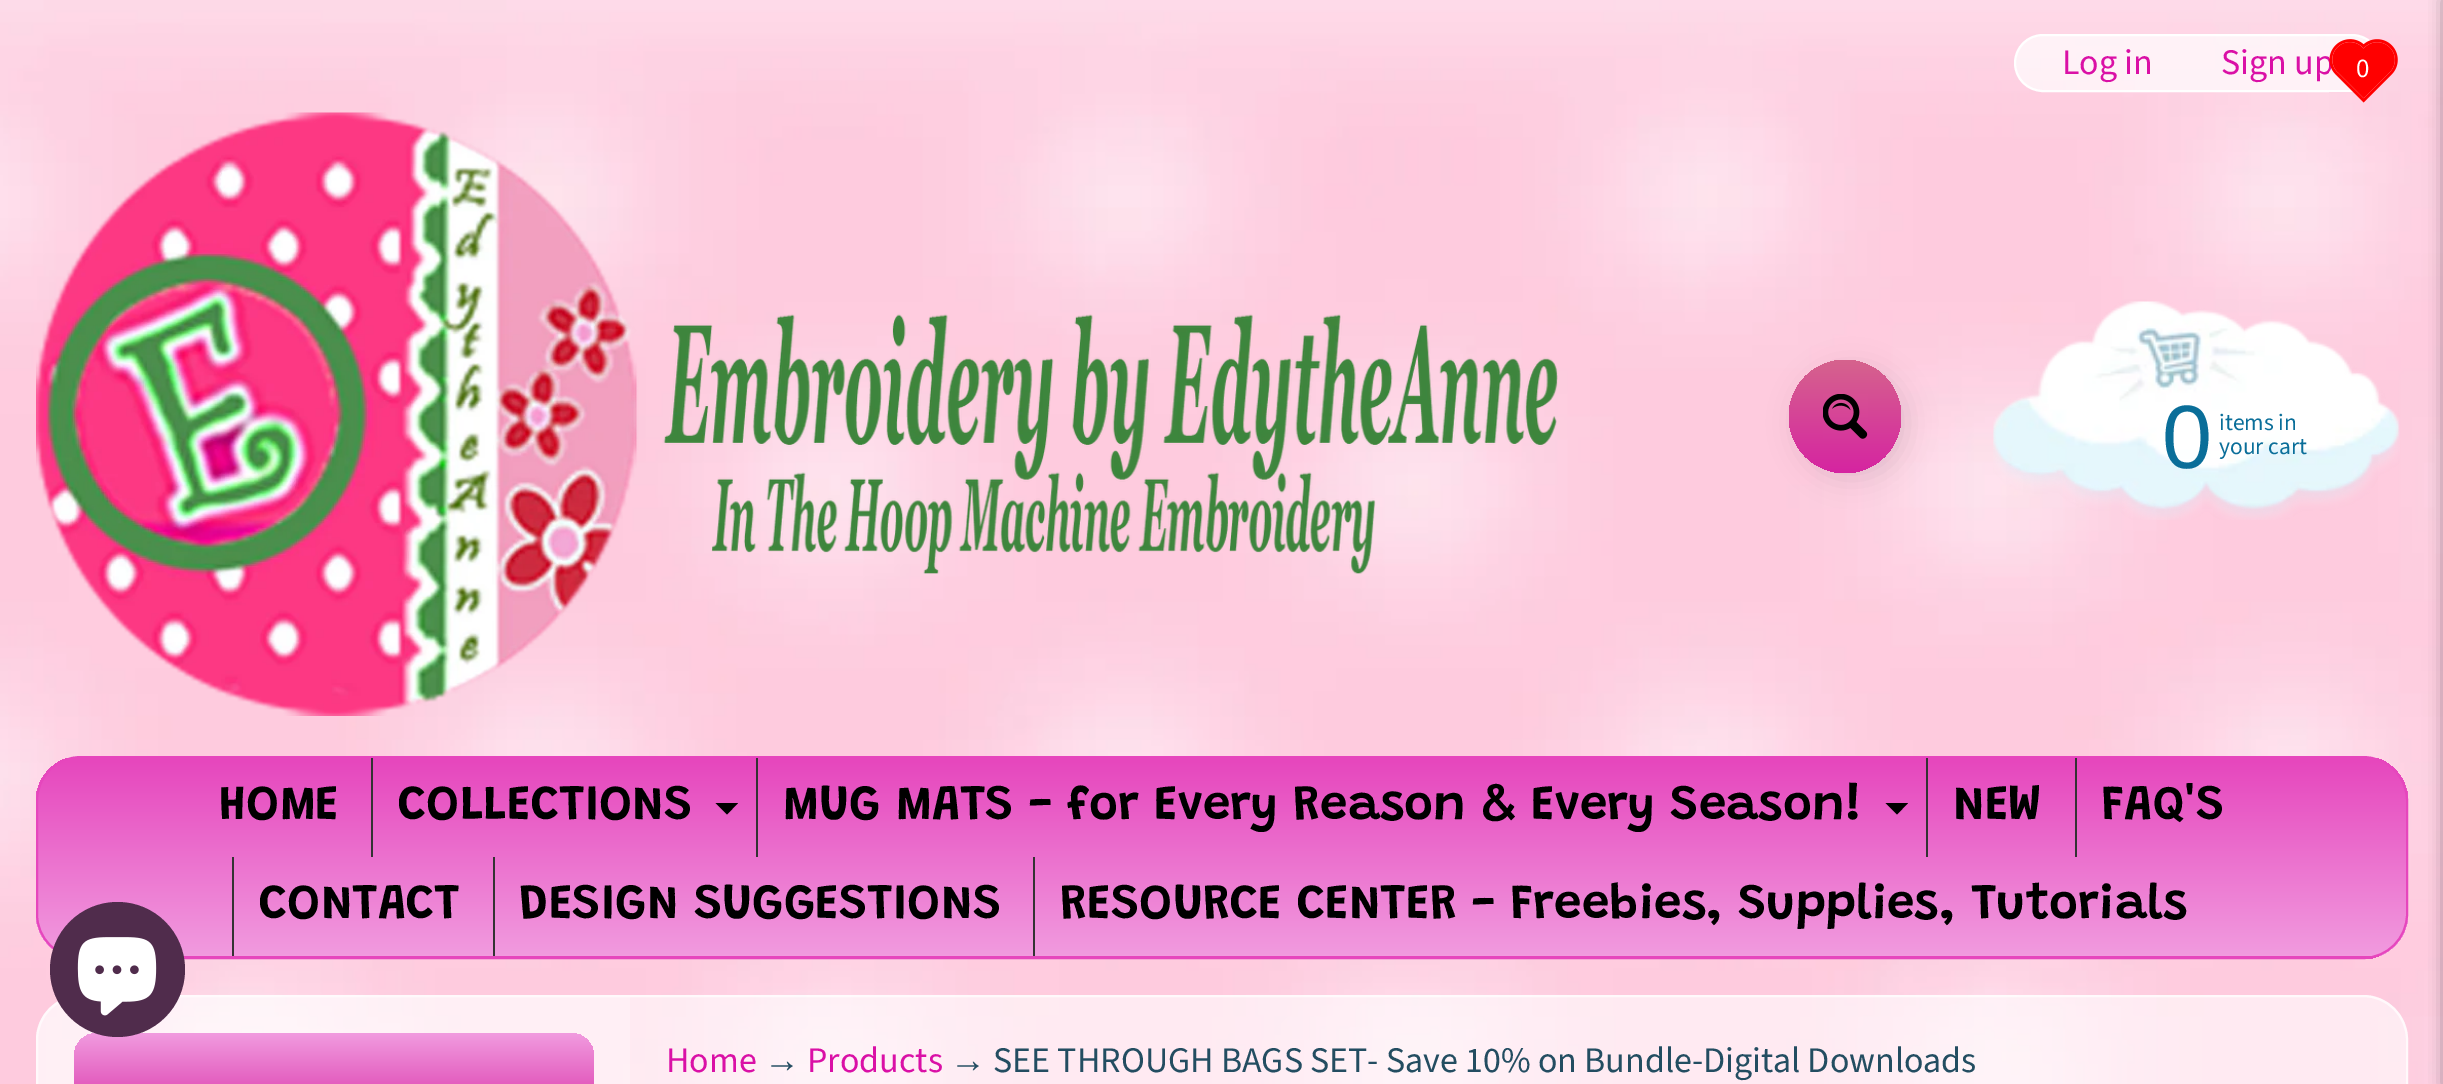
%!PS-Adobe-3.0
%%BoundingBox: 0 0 2443 1084
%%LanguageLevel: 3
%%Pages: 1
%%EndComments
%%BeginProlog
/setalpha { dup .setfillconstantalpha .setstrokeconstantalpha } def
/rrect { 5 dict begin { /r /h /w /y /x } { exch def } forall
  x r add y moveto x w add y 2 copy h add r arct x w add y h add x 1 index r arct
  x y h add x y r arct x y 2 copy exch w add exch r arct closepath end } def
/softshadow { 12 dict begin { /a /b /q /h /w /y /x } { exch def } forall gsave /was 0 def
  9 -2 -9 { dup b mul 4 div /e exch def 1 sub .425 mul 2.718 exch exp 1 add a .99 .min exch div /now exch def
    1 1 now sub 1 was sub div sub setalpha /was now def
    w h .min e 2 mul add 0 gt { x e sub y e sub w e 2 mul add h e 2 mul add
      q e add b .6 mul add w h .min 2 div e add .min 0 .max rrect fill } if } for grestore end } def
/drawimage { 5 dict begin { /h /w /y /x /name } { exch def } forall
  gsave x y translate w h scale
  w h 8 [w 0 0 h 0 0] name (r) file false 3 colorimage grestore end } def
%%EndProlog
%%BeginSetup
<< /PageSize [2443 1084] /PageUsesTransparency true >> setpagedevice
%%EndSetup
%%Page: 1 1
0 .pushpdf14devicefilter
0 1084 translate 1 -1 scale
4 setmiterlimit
1 setgray
0 0 2443 1084 rectfill
(images/1.raw) 0 0 2443 1084 drawimage
(images/2.raw) 36 112 1522 604 drawimage
0.7 setalpha
2015 35 365 56 28 rrect fill
1 setalpha
2 setlinewidth
2015 35 365 56 28 rrect stroke
0 setgray
1796 367 112 112 56 13.5 0.1 softshadow
gsave 1789 360 112 113 56 rrect clip newpath
<< /ShadingType 2 /ColorSpace /DeviceRGB /Coords [1845 360 1845 473] /Extend [true true] /Function << /FunctionType 2 /Domain [0 1] /C0 [0.839 0.388 0.553] /C1 [0.835 0.141 0.631] /N 1 >> >> shfill grestore
(images/3.raw) 1823 394 45 45 drawimage
(images/4.raw) 1993 301 407 219 drawimage
gsave
36 756 2372 203 45 rrect clip newpath
gsave newpath 36 758 moveto 2408 758 lineto 2408 956 lineto 36 956 lineto closepath clip newpath
<< /ShadingType 2 /ColorSpace /DeviceRGB /Coords [1222 758 1222 956] /Extend [true true] /Function << /FunctionType 2 /Domain [0 1] /C0 [0.902 0.275 0.741] /C1 [0.945 0.608 0.875] /N 1 >> >> shfill grestore
gsave newpath 183 956 moveto 2379 956 lineto 2379 959 lineto 183 959 lineto closepath clip newpath
<< /ShadingType 2 /ColorSpace /DeviceRGB /Coords [1222 956 1222 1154] /Extend [true true] /Function << /FunctionType 2 /Domain [0 1] /C0 [0.902 0.275 0.741] /C1 [0.945 0.608 0.875] /N 1 >> >> shfill grestore
grestore
0.902 0.275 0.741 setrgbcolor
37 757 2370 201 44 rrect stroke
0.2 setgray
371 758 2 99 rectfill
0 setgray
newpath 715.5 803 moveto 738 803 lineto 727 814.5 lineto closepath fill
0.2 setgray
756 758 2 99 rectfill
0 setgray
newpath 1885.5 803 moveto 1908 803 lineto 1897 814.5 lineto closepath fill
0.2 setgray
1926 758 2 99 rectfill
2075 758 2 99 rectfill
232 857 2 99 rectfill
493 857 2 99 rectfill
1033 857 2 99 rectfill
0.6 setalpha
1 setgray
36 995 2372 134 45 rrect fill
0.7 setalpha
37 996 2370 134 44 rrect stroke
0.25 setalpha
newpath 81 997 moveto 630 997 lineto 630 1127 lineto 81 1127 lineto 57.5 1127 38 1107.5 38 1084 curveto 38 1040 lineto 38 1016.5 57.5 997 81 997 curveto closepath fill
1 setalpha
gsave 74 1033 520 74 23 rrect clip newpath
<< /ShadingType 2 /ColorSpace /DeviceRGB /Coords [334 1033 334 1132] /Extend [true true] /Function << /FunctionType 2 /Domain [0 1] /C0 [0.945 0.608 0.875] /C1 [0.835 0.141 0.631] /N 1 >> >> shfill grestore
0 setgray
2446 0 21 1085 0 8 0.5 softshadow
0.314 0.173 0.298 setrgbcolor
newpath 117.5 969.5 67.5 0 360 arc closepath fill
(images/6.raw) 77 937 80 79 drawimage
/SourceSansPro-Regular [36 0 0 -36 0 0] selectfont
0.855 0.063 0.651 setrgbcolor
2062 74 moveto (Log in) show
2221 74 moveto (Sign up) show
/LiberationSans-Regular [90 0 0 -90 0 0] selectfont
0.039 0.431 0.6 setrgbcolor
2162 468 moveto (0) show
/SourceSansPro-Regular [23.5 0 0 -23.5 0 0] selectfont
2219 430 moveto (items in) show
2219 454 moveto (your cart) show
/Grandstander-SemiBold [49.5 0 0 -49.5 0 0] selectfont
0 setgray
219 819 moveto (HOME) show
398 819 moveto (COLLECTIONS) show
783 819 moveto (MUG MATS - for Every Reason & Every Season!) show
1953 819 moveto (NEW) show
2101 819 moveto (FAQ'S) show
259 918 moveto (CONTACT) show
519 918 moveto (DESIGN SUGGESTIONS) show
1060 918 moveto (RESOURCE CENTER - Freebies, Supplies, Tutorials) show
/SourceSansPro-Regular [36 0 0 -36 0 0] selectfont
0.855 0.063 0.651 setrgbcolor
666 1072 moveto (Home) show
/LiberationSans-Regular [36 0 0 -36 0 0] selectfont
0.137 0.302 0.38 setrgbcolor
764 1072 moveto (→) show
/SourceSansPro-Regular [36 0 0 -36 0 0] selectfont
0.855 0.063 0.651 setrgbcolor
807 1072 moveto (Products) show
/LiberationSans-Regular [36 0 0 -36 0 0] selectfont
0.137 0.302 0.38 setrgbcolor
950 1072 moveto (→) show
/SourceSansPro-Regular [36 0 0 -36 0 0] selectfont
993 1072 moveto (SEE THROUGH BAGS SET- Save 10% on Bundle-Digital Downloads) show
(images/5.raw) 2329 39 69 64 drawimage
/SourceSansPro-Regular [27 0 0 -27 0 0] selectfont
1 setgray
2356 77 moveto (0) show
.poppdf14devicefilter showpage
%%EOF
